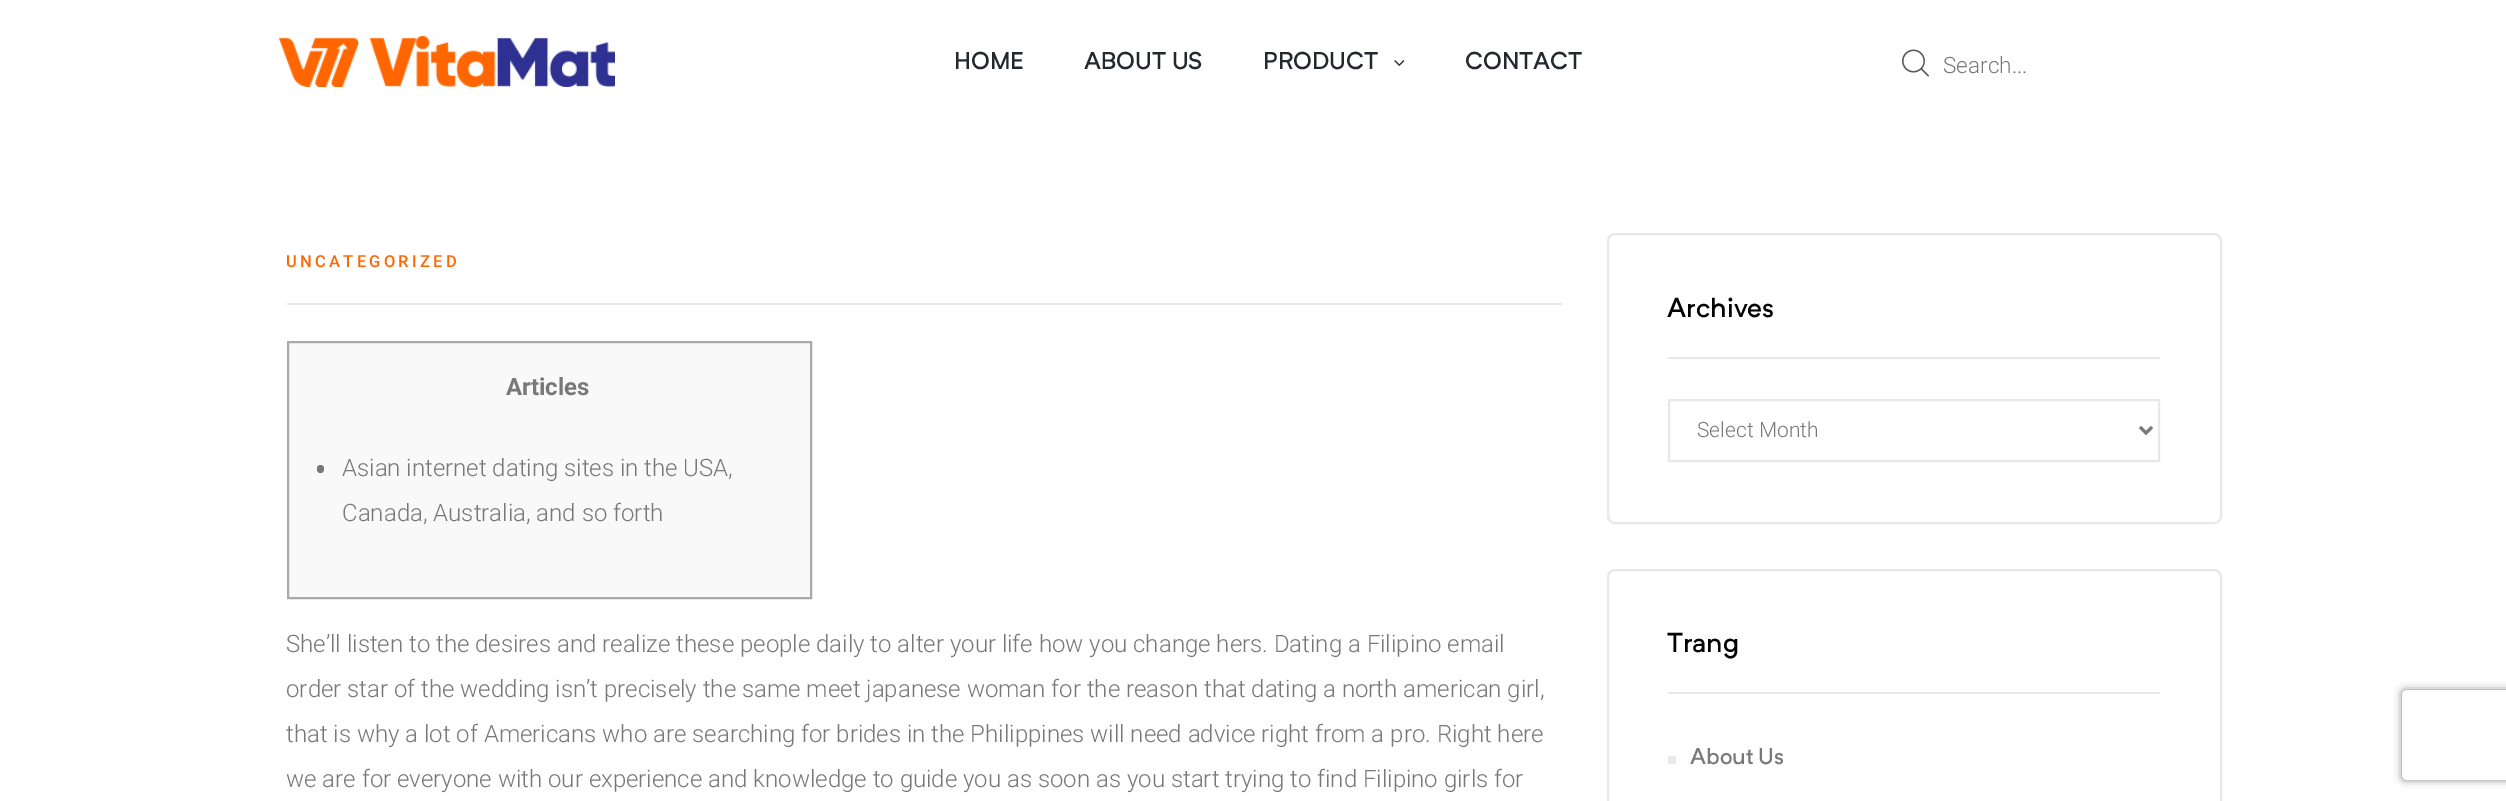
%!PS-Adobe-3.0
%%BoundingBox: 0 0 2506 801
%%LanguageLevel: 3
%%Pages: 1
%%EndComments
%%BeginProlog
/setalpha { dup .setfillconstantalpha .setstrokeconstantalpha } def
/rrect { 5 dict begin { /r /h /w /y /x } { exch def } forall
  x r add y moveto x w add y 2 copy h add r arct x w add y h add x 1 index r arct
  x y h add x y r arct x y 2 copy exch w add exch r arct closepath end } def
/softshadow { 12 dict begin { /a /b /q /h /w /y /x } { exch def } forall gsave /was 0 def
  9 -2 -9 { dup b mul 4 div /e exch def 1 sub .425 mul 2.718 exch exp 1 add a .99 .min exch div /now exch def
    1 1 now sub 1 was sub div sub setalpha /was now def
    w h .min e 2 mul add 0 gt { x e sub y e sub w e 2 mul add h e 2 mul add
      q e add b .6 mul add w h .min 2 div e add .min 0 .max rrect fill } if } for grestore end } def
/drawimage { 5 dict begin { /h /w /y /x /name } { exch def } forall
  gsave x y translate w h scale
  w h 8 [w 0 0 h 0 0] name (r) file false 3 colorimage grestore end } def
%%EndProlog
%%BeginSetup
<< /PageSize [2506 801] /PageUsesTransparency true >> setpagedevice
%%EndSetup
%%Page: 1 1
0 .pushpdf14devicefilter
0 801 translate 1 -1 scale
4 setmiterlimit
1 setgray
0 0 2506 801 rectfill
(images/1.raw) 279 36 336 51 drawimage
(images/2.raw) 1394 60 11 6 drawimage
(images/3.raw) 1902 49 27 28 drawimage
0.91 setgray
287 303 1275 2 rectfill
0.976 setgray
newpath 288 342 moveto 811 342 lineto 811 598 lineto 288 598 lineto closepath gsave fill grestore
0.667 setgray
2 setlinewidth
stroke
0.471 setgray
317 465 7 8 3.5 rrect fill
0.91 setgray
1608 234 613 289 7 rrect stroke
1668 357 492 2 rectfill
1669 400 490 61 rectstroke
0.471 setgray
3 setlinewidth
newpath 2140 427 moveto 2146 433 lineto 2152 427 lineto stroke
0.91 setgray
2 setlinewidth
1608 570 613 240 7 rrect stroke
1668 692 492 2 rectfill
1668 756 8 8 rectfill
gsave
newpath 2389 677 moveto 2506 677 lineto 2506 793 lineto 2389 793 lineto closepath 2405 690 moveto 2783 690 lineto 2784.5 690 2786 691.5 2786 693 curveto 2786 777 lineto 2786 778.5 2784.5 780 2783 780 curveto 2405 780 lineto 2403.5 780 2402 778.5 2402 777 curveto 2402 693 lineto 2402 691.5 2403.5 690 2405 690 curveto closepath eoclip newpath
0.502 setgray
2402 690 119 90 3 4 1 softshadow
grestore
/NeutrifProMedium-Medium [24 0 0 -24 0 0] selectfont
0.141 0.157 0.176 setrgbcolor
954 69 moveto (HOME) show
1084 69 moveto (ABOUT US) show
1263 69 moveto (PRODUCT) show
1465 69 moveto (CONTACT) show
/Roboto-Light [22.5 0 0 -22.5 0 0] selectfont
0.471 setgray
1943 73 moveto (Search...) show
/Roboto-Medium [16.5 0 0 -16.5 0 0] selectfont
1 0.4 0 setrgbcolor
286 267 moveto 3.25 0 (UNCATEGORIZED) ashow
/Roboto-Bold [24 0 0 -24 0 0] selectfont
0.471 setgray
506 395 moveto (Articles) show
/Roboto-Light [24 0 0 -24 0 0] selectfont
342 476 moveto (Asian internet dating sites in the USA,) show
342 521 moveto (Canada, Australia, and so forth) show
286 652 moveto (She’ll listen to the desires and realize these people daily to alter your life how you change hers. Dating a Filipino email) show
286 697 moveto (order star of the wedding isn’t precisely the same meet japanese woman for the reason that dating a north american girl,) show
286 742 moveto (that is why a lot of Americans who are searching for brides in the Philippines will need advice right from a pro. Right here) show
286 787 moveto (we are for everyone with our experience and knowledge to guide you as soon as you start trying to find Filipino girls for) show
/NeutrifProMedium-Medium [27 0 0 -27 0 0] selectfont
0 setgray
1667 317 moveto (Archives) show
/Roboto-Light [21 0 0 -21 0 0] selectfont
0.471 setgray
1697 437 moveto (Select Month) show
/NeutrifProMedium-Medium [27 0 0 -27 0 0] selectfont
0 setgray
1667 652 moveto (Trang) show
/NeutrifProMedium-Medium [22.5 0 0 -22.5 0 0] selectfont
0.471 setgray
1690 764 moveto (About Us) show
.poppdf14devicefilter showpage
%%EOF
